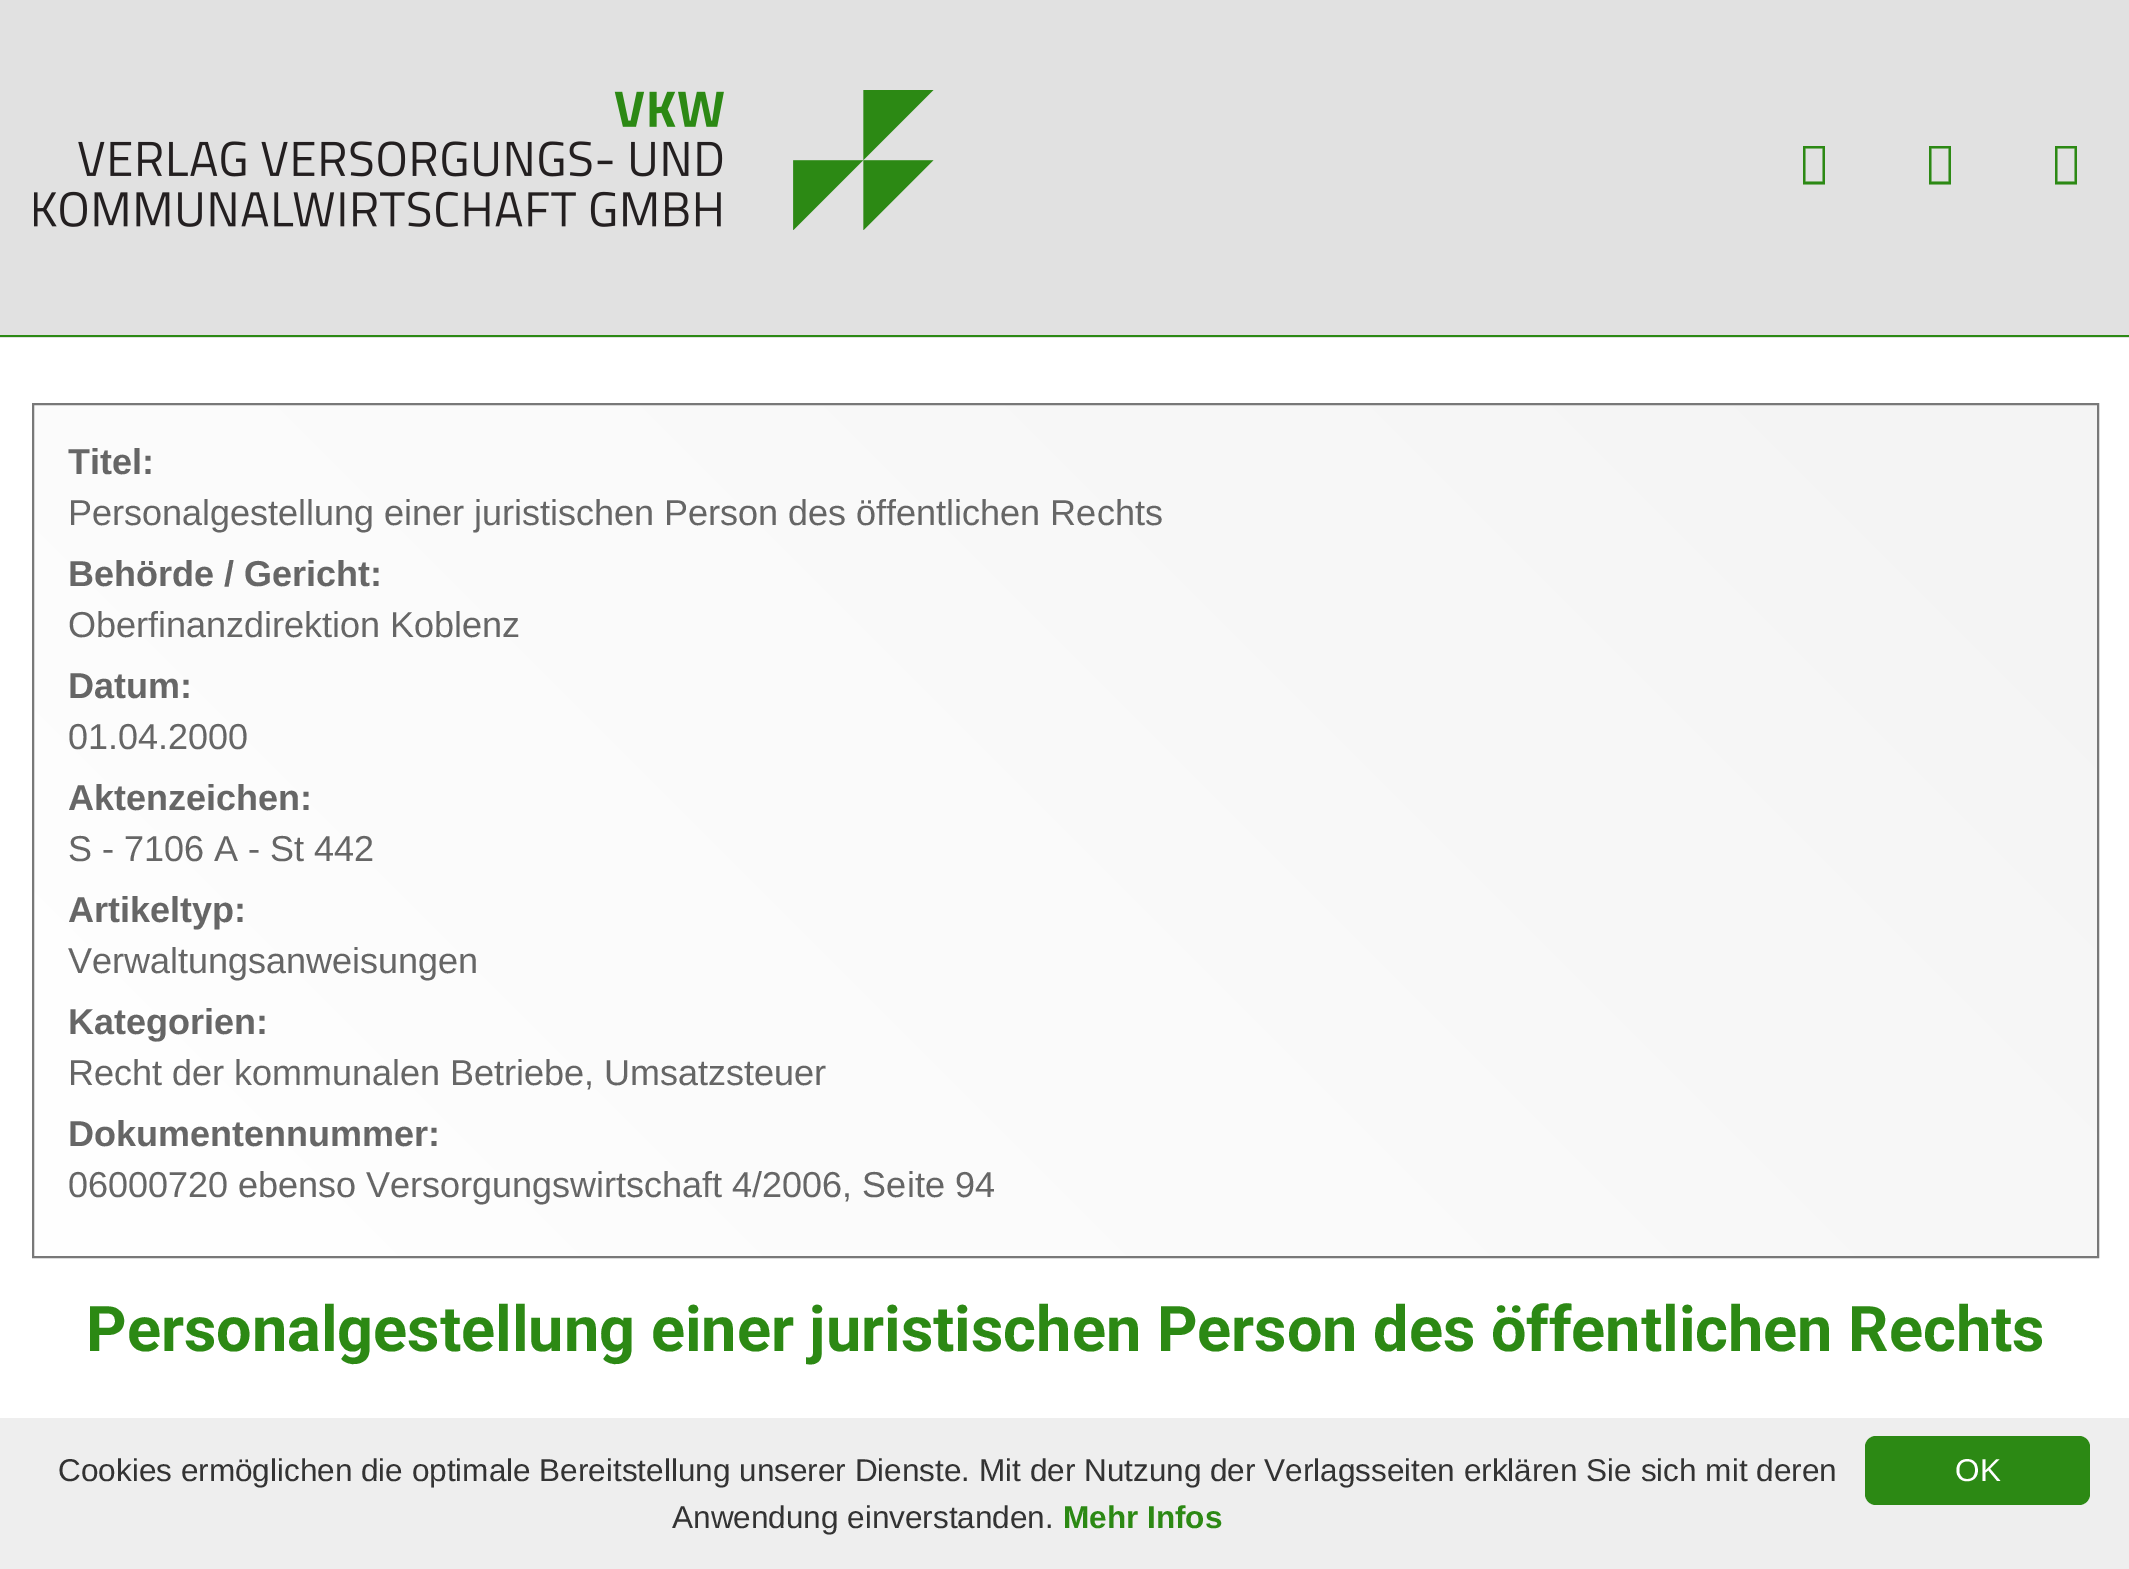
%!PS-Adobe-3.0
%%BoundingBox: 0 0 2129 1569
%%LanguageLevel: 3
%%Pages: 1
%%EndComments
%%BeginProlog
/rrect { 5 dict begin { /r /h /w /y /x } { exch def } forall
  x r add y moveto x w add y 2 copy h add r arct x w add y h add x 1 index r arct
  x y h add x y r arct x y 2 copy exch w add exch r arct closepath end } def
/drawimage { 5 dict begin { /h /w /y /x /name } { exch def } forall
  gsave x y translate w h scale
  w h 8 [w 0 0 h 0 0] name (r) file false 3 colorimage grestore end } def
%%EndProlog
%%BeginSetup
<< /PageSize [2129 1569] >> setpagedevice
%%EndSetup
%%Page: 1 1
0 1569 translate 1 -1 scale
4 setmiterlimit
1 setgray
0 0 2129 1569 rectfill
0.882 setgray
0 0 2129 338 rectfill
0.173 0.537 0.078 setrgbcolor
0 335 2129 2 rectfill
(images/1.raw) 34 90 900 140 drawimage
newpath 1803 184.5 moveto 1803 146 lineto 1825 146 lineto 1825 184.5 lineto closepath 1805.5 181.5 moveto 1822.5 181.5 lineto 1822.5 148.5 lineto 1805.5 148.5 lineto closepath fill
newpath 1929 184.5 moveto 1929 146 lineto 1951 146 lineto 1951 184.5 lineto closepath 1931.5 181.5 moveto 1948.5 181.5 lineto 1948.5 148.5 lineto 1931.5 148.5 lineto closepath fill
newpath 2055 184.5 moveto 2055 146 lineto 2077 146 lineto 2077 184.5 lineto closepath 2057.5 181.5 moveto 2074.5 181.5 lineto 2074.5 148.5 lineto 2057.5 148.5 lineto closepath fill
gsave newpath 34 405 moveto 2097 405 lineto 2097 1256 lineto 34 1256 lineto closepath clip newpath
<< /ShadingType 2 /ColorSpace /DeviceRGB /Coords [337 1559 1794 102] /Extend [true true] /Function << /FunctionType 2 /Domain [0 1] /C0 [1 1 1] /C1 [0.957 0.957 0.957] /N 1 >> >> shfill grestore
0.471 setgray
2 setlinewidth
33 404 2065 853 rectstroke
0.933 setgray
0 1418 2129 151 rectfill
0.173 0.537 0.078 setrgbcolor
1865 1436 225 69 11 rrect fill
/LiberationSans-Bold [36 0 0 -36 0 0] selectfont
0.4 setgray
68 474 moveto (Titel:) show
/LiberationSans-Regular [36 0 0 -36 0 0] selectfont
68 525 moveto (Personalgestellung einer juristischen Person des öffentlichen Rechts) show
/LiberationSans-Bold [36 0 0 -36 0 0] selectfont
68 586 moveto (Behörde / Gericht:) show
/LiberationSans-Regular [36 0 0 -36 0 0] selectfont
68 637 moveto (Oberfinanzdirektion Koblenz) show
/LiberationSans-Bold [36 0 0 -36 0 0] selectfont
68 698 moveto (Datum:) show
/LiberationSans-Regular [36 0 0 -36 0 0] selectfont
68 749 moveto (01.04.2000) show
/LiberationSans-Bold [36 0 0 -36 0 0] selectfont
68 810 moveto (Aktenzeichen:) show
/LiberationSans-Regular [36 0 0 -36 0 0] selectfont
68 861 moveto (S - 7106 A - St 442) show
/LiberationSans-Bold [36 0 0 -36 0 0] selectfont
68 922 moveto (Artikeltyp:) show
/LiberationSans-Regular [36 0 0 -36 0 0] selectfont
68 973 moveto (Verwaltungsanweisungen) show
/LiberationSans-Bold [36 0 0 -36 0 0] selectfont
68 1034 moveto (Kategorien:) show
/LiberationSans-Regular [36 0 0 -36 0 0] selectfont
68 1085 moveto (Recht der kommunalen Betriebe, Umsatzsteuer) show
/LiberationSans-Bold [36 0 0 -36 0 0] selectfont
68 1146 moveto (Dokumentennummer:) show
/LiberationSans-Regular [36 0 0 -36 0 0] selectfont
68 1197 moveto (06000720 ebenso Versorgungswirtschaft 4/2006, Seite 94) show
/Roboto-Bold [63 0 0 -63 0 0] selectfont
0.173 0.537 0.078 setrgbcolor
86 1351 moveto (Personalgestellung einer juristischen Person des öffentlichen Rechts) show
/LiberationSans-Regular [31.5 0 0 -31.5 0 0] selectfont
0.2 setgray
58 1481 moveto (Cookies ermöglichen die optimale Bereitstellung unserer Dienste. Mit der Nutzung der Verlagsseiten erklären Sie sich mit deren) show
672 1528 moveto (Anwendung einverstanden.) show
/LiberationSans-Bold [31.5 0 0 -31.5 0 0] selectfont
0.173 0.537 0.078 setrgbcolor
1063 1528 moveto (Mehr Infos) show
/LiberationSans-Regular [31.5 0 0 -31.5 0 0] selectfont
1 setgray
1955 1481 moveto (OK) show
showpage
%%EOF
